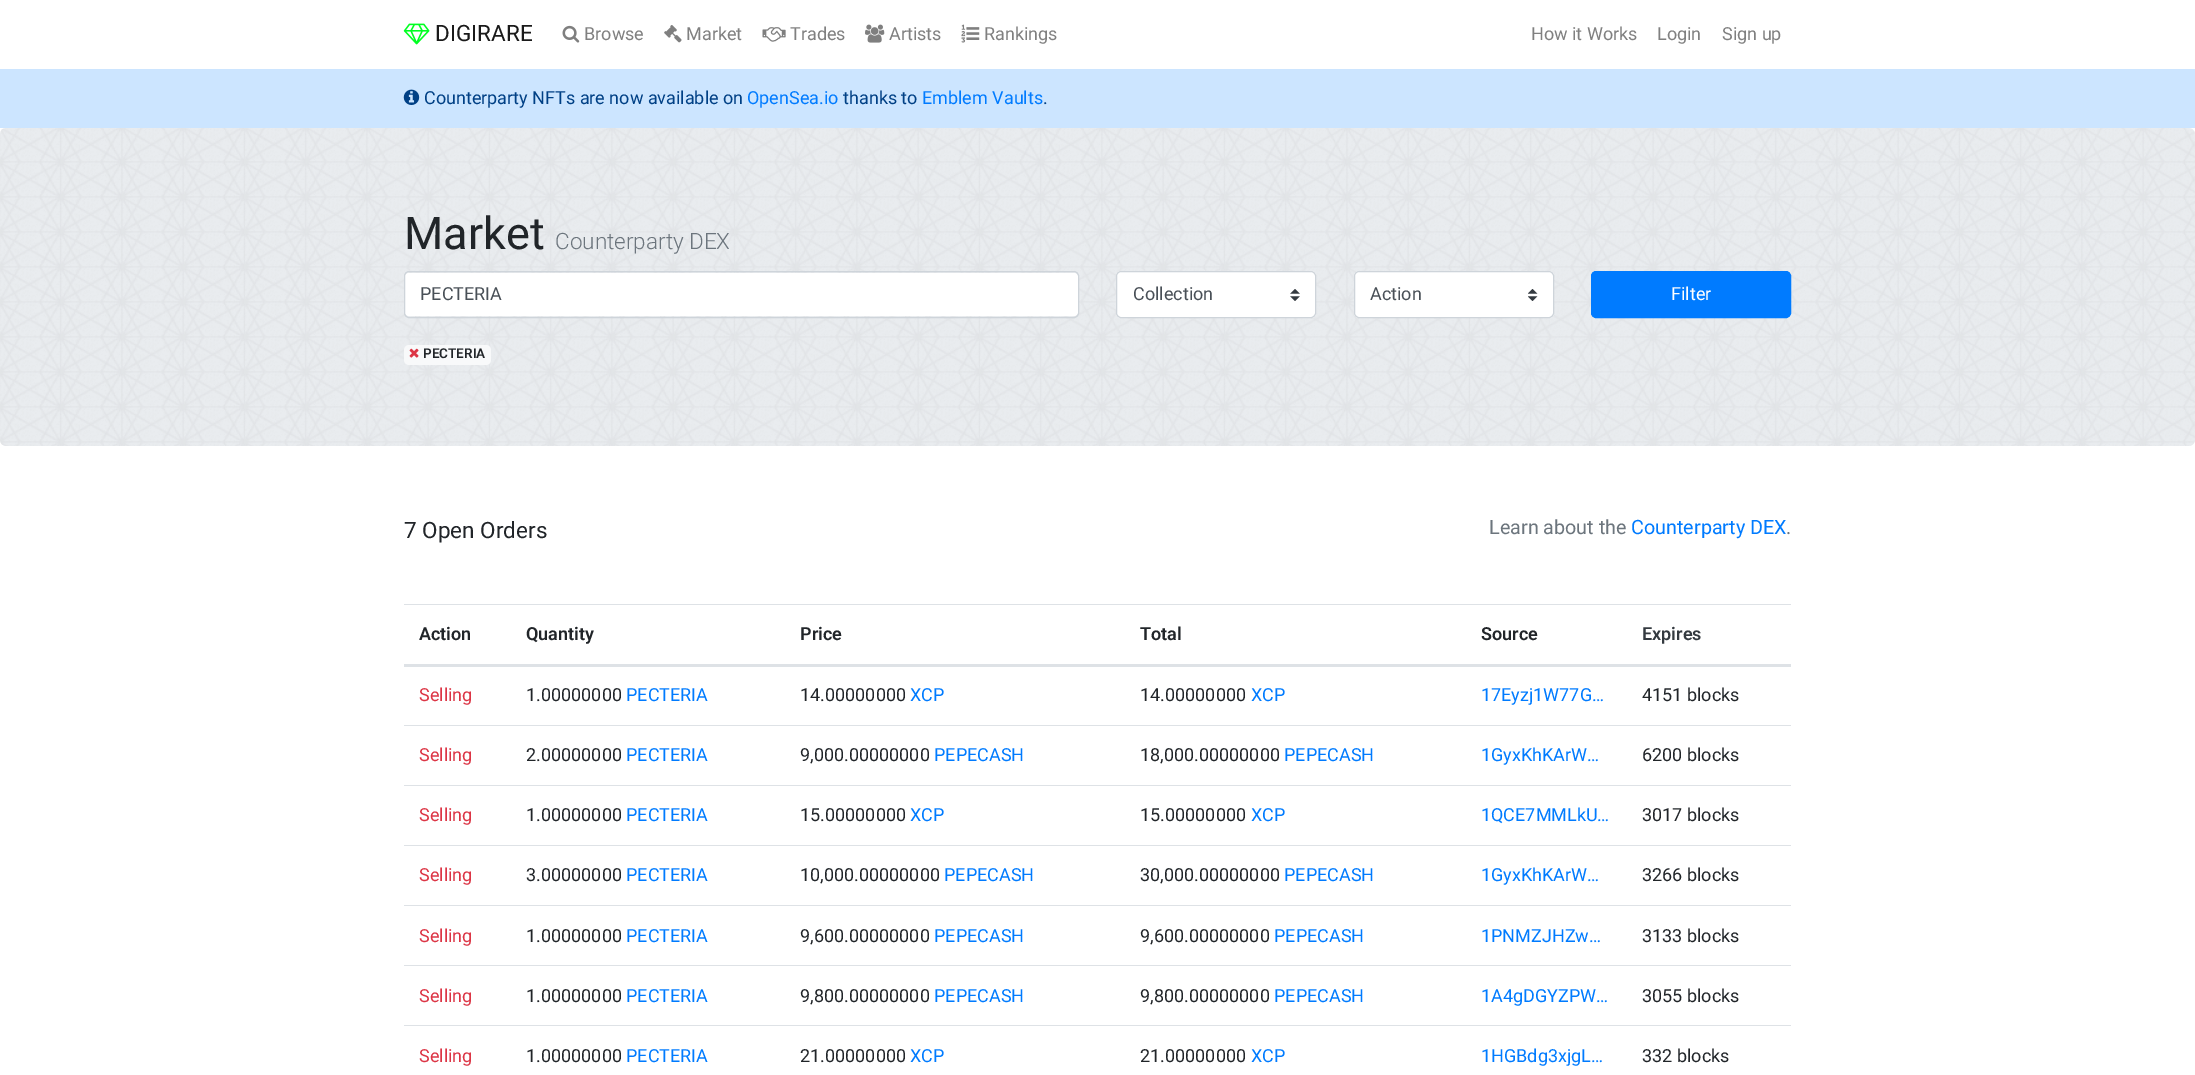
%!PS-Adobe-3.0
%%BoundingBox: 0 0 2195 1075
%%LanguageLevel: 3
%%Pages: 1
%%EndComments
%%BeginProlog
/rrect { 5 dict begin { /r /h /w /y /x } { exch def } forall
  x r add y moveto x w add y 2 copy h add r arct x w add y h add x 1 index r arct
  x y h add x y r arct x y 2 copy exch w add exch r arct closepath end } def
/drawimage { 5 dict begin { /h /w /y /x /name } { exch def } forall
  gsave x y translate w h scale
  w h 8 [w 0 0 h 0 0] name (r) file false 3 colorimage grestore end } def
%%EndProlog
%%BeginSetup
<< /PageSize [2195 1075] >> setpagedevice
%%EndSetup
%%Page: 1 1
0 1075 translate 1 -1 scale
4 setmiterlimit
1 setgray
0 0 2195 1075 rectfill
(images/1.raw) 403 23 27 22 drawimage
(images/2.raw) 562 25 18 18 drawimage
(images/3.raw) 664 25 18 18 drawimage
(images/4.raw) 762 27 24 15 drawimage
(images/5.raw) 865 24 20 19 drawimage
(images/6.raw) 961 24 19 19 drawimage
0.8 0.898 1 setrgbcolor
0 69 2195 59 rectfill
(images/7.raw) 403 89 17 16 drawimage
0.914 0.925 0.937 setrgbcolor
0 128 2195 318 6 rrect fill
(images/8.raw) 0 128 2195 318 drawimage
1 setgray
405 273 673 43 4 rrect fill
0.808 0.831 0.855 setrgbcolor
404.5 271.5 674 46 4.5 rrect stroke
1 setgray
1116 271 200 47 5 rrect fill
(images/9.raw) 1290 289 10 12 drawimage
0.808 0.831 0.855 setrgbcolor
1116.5 271.5 199 46 4.5 rrect stroke
1 setgray
1354 271 200 47 5 rrect fill
(images/10.raw) 1528 289 10 12 drawimage
0.808 0.831 0.855 setrgbcolor
1354.5 271.5 199 46 4.5 rrect stroke
0 0.482 1 setrgbcolor
1591.5 271.5 199 46 4.5 rrect gsave fill grestore
stroke
0.973 0.976 0.98 setrgbcolor
404 345 87 20 5 rrect fill
(images/11.raw) 409 348 10 10 drawimage
0.871 0.886 0.902 setrgbcolor
404 604 1387 1 rectfill
404 664 1387 3 rectfill
404 725 1387 1 rectfill
404 785 1387 1 rectfill
404 845 1387 1 rectfill
404 905 1387 1 rectfill
404 965 1387 1 rectfill
404 1025 1387 1 rectfill
/Roboto-Regular [22.5 0 0 -22.5 0 0] selectfont
0.102 setgray
435 41 moveto (DIGIRARE) show
/Roboto-Regular [18 0 0 -18 0 0] selectfont
0.502 setgray
584 40 moveto (Browse) show
686 40 moveto (Market) show
790 40 moveto (Trades) show
889 40 moveto (Artists) show
984 40 moveto (Rankings) show
1531 40 moveto (How it Works) show
1657 40 moveto (Login) show
1722 40 moveto (Sign up) show
0 0.251 0.522 setrgbcolor
424 104 moveto (Counterparty NFTs are now available on) show
0 0.482 1 setrgbcolor
747 104 moveto (OpenSea.io) show
0 0.251 0.522 setrgbcolor
843 104 moveto (thanks to) show
0 0.482 1 setrgbcolor
922 104 moveto (Emblem Vaults) show
0 0.251 0.522 setrgbcolor
1043 104 moveto (.) show
/Roboto-Regular [45 0 0 -45 0 0] selectfont
0.129 0.145 0.161 setrgbcolor
404 249 moveto (Market) show
/Roboto-Light [22.5 0 0 -22.5 0 0] selectfont
0.424 0.459 0.49 setrgbcolor
555 249 moveto (Counterparty DEX) show
/Roboto-Regular [18 0 0 -18 0 0] selectfont
0.286 0.314 0.341 setrgbcolor
420 300 moveto (PECTERIA) show
1133 300 moveto (Collection) show
1370 300 moveto (Action) show
1 setgray
1671 300 moveto (Filter) show
/Roboto-SemiBold [13.5 0 0 -13.5 0 0] selectfont
0.129 0.145 0.161 setrgbcolor
423 358 moveto (PECTERIA) show
/Roboto-Regular [22.5 0 0 -22.5 0 0] selectfont
404 538 moveto (7 Open Orders) show
/Roboto-Regular [19.75 0 0 -19.75 0 0] selectfont
0.424 0.459 0.49 setrgbcolor
1489 534 moveto (Learn about the) show
0 0.482 1 setrgbcolor
1631 534 moveto (Counterparty DEX) show
0.424 0.459 0.49 setrgbcolor
1786 534 moveto (.) show
/Roboto-SemiBold [18 0 0 -18 0 0] selectfont
0.129 0.145 0.161 setrgbcolor
419 640 moveto (Action) show
526 640 moveto (Quantity) show
800 640 moveto (Price) show
1140 640 moveto (Total) show
1481 640 moveto (Source) show
0.204 0.227 0.251 setrgbcolor
1642 640 moveto (Expires) show
/Roboto-Regular [18 0 0 -18 0 0] selectfont
0.863 0.208 0.271 setrgbcolor
419 701 moveto (Selling) show
0.129 0.145 0.161 setrgbcolor
526 701 moveto (1.00000000) show
0 0.482 1 setrgbcolor
626 701 moveto (PECTERIA) show
0.129 0.145 0.161 setrgbcolor
800 701 moveto (14.00000000) show
0 0.482 1 setrgbcolor
910 701 moveto (XCP) show
0.129 0.145 0.161 setrgbcolor
1140 701 moveto (14.00000000) show
0 0.482 1 setrgbcolor
1251 701 moveto (XCP) show
1481 701 moveto (17Eyzj1W77G…) show
0.129 0.145 0.161 setrgbcolor
1642 701 moveto (4151 blocks) show
0.863 0.208 0.271 setrgbcolor
419 761 moveto (Selling) show
0.129 0.145 0.161 setrgbcolor
526 761 moveto (2.00000000) show
0 0.482 1 setrgbcolor
626 761 moveto (PECTERIA) show
0.129 0.145 0.161 setrgbcolor
800 761 moveto (9,000.00000000) show
0 0.482 1 setrgbcolor
934 761 moveto (PEPECASH) show
0.129 0.145 0.161 setrgbcolor
1140 761 moveto (18,000.00000000) show
0 0.482 1 setrgbcolor
1284 761 moveto (PEPECASH) show
1481 761 moveto (1GyxKhKArW…) show
0.129 0.145 0.161 setrgbcolor
1642 761 moveto (6200 blocks) show
0.863 0.208 0.271 setrgbcolor
419 821 moveto (Selling) show
0.129 0.145 0.161 setrgbcolor
526 821 moveto (1.00000000) show
0 0.482 1 setrgbcolor
626 821 moveto (PECTERIA) show
0.129 0.145 0.161 setrgbcolor
800 821 moveto (15.00000000) show
0 0.482 1 setrgbcolor
910 821 moveto (XCP) show
0.129 0.145 0.161 setrgbcolor
1140 821 moveto (15.00000000) show
0 0.482 1 setrgbcolor
1251 821 moveto (XCP) show
1481 821 moveto (1QCE7MMLkU…) show
0.129 0.145 0.161 setrgbcolor
1642 821 moveto (3017 blocks) show
0.863 0.208 0.271 setrgbcolor
419 881 moveto (Selling) show
0.129 0.145 0.161 setrgbcolor
526 881 moveto (3.00000000) show
0 0.482 1 setrgbcolor
626 881 moveto (PECTERIA) show
0.129 0.145 0.161 setrgbcolor
800 881 moveto (10,000.00000000) show
0 0.482 1 setrgbcolor
944 881 moveto (PEPECASH) show
0.129 0.145 0.161 setrgbcolor
1140 881 moveto (30,000.00000000) show
0 0.482 1 setrgbcolor
1284 881 moveto (PEPECASH) show
1481 881 moveto (1GyxKhKArW…) show
0.129 0.145 0.161 setrgbcolor
1642 881 moveto (3266 blocks) show
0.863 0.208 0.271 setrgbcolor
419 942 moveto (Selling) show
0.129 0.145 0.161 setrgbcolor
526 942 moveto (1.00000000) show
0 0.482 1 setrgbcolor
626 942 moveto (PECTERIA) show
0.129 0.145 0.161 setrgbcolor
800 942 moveto (9,600.00000000) show
0 0.482 1 setrgbcolor
934 942 moveto (PEPECASH) show
0.129 0.145 0.161 setrgbcolor
1140 942 moveto (9,600.00000000) show
0 0.482 1 setrgbcolor
1274 942 moveto (PEPECASH) show
1481 942 moveto (1PNMZJHZw…) show
0.129 0.145 0.161 setrgbcolor
1642 942 moveto (3133 blocks) show
0.863 0.208 0.271 setrgbcolor
419 1002 moveto (Selling) show
0.129 0.145 0.161 setrgbcolor
526 1002 moveto (1.00000000) show
0 0.482 1 setrgbcolor
626 1002 moveto (PECTERIA) show
0.129 0.145 0.161 setrgbcolor
800 1002 moveto (9,800.00000000) show
0 0.482 1 setrgbcolor
934 1002 moveto (PEPECASH) show
0.129 0.145 0.161 setrgbcolor
1140 1002 moveto (9,800.00000000) show
0 0.482 1 setrgbcolor
1274 1002 moveto (PEPECASH) show
1481 1002 moveto (1A4gDGYZPW…) show
0.129 0.145 0.161 setrgbcolor
1642 1002 moveto (3055 blocks) show
0.863 0.208 0.271 setrgbcolor
419 1062 moveto (Selling) show
0.129 0.145 0.161 setrgbcolor
526 1062 moveto (1.00000000) show
0 0.482 1 setrgbcolor
626 1062 moveto (PECTERIA) show
0.129 0.145 0.161 setrgbcolor
800 1062 moveto (21.00000000) show
0 0.482 1 setrgbcolor
910 1062 moveto (XCP) show
0.129 0.145 0.161 setrgbcolor
1140 1062 moveto (21.00000000) show
0 0.482 1 setrgbcolor
1251 1062 moveto (XCP) show
1481 1062 moveto (1HGBdg3xjgL…) show
0.129 0.145 0.161 setrgbcolor
1642 1062 moveto (332 blocks) show
showpage
%%EOF
